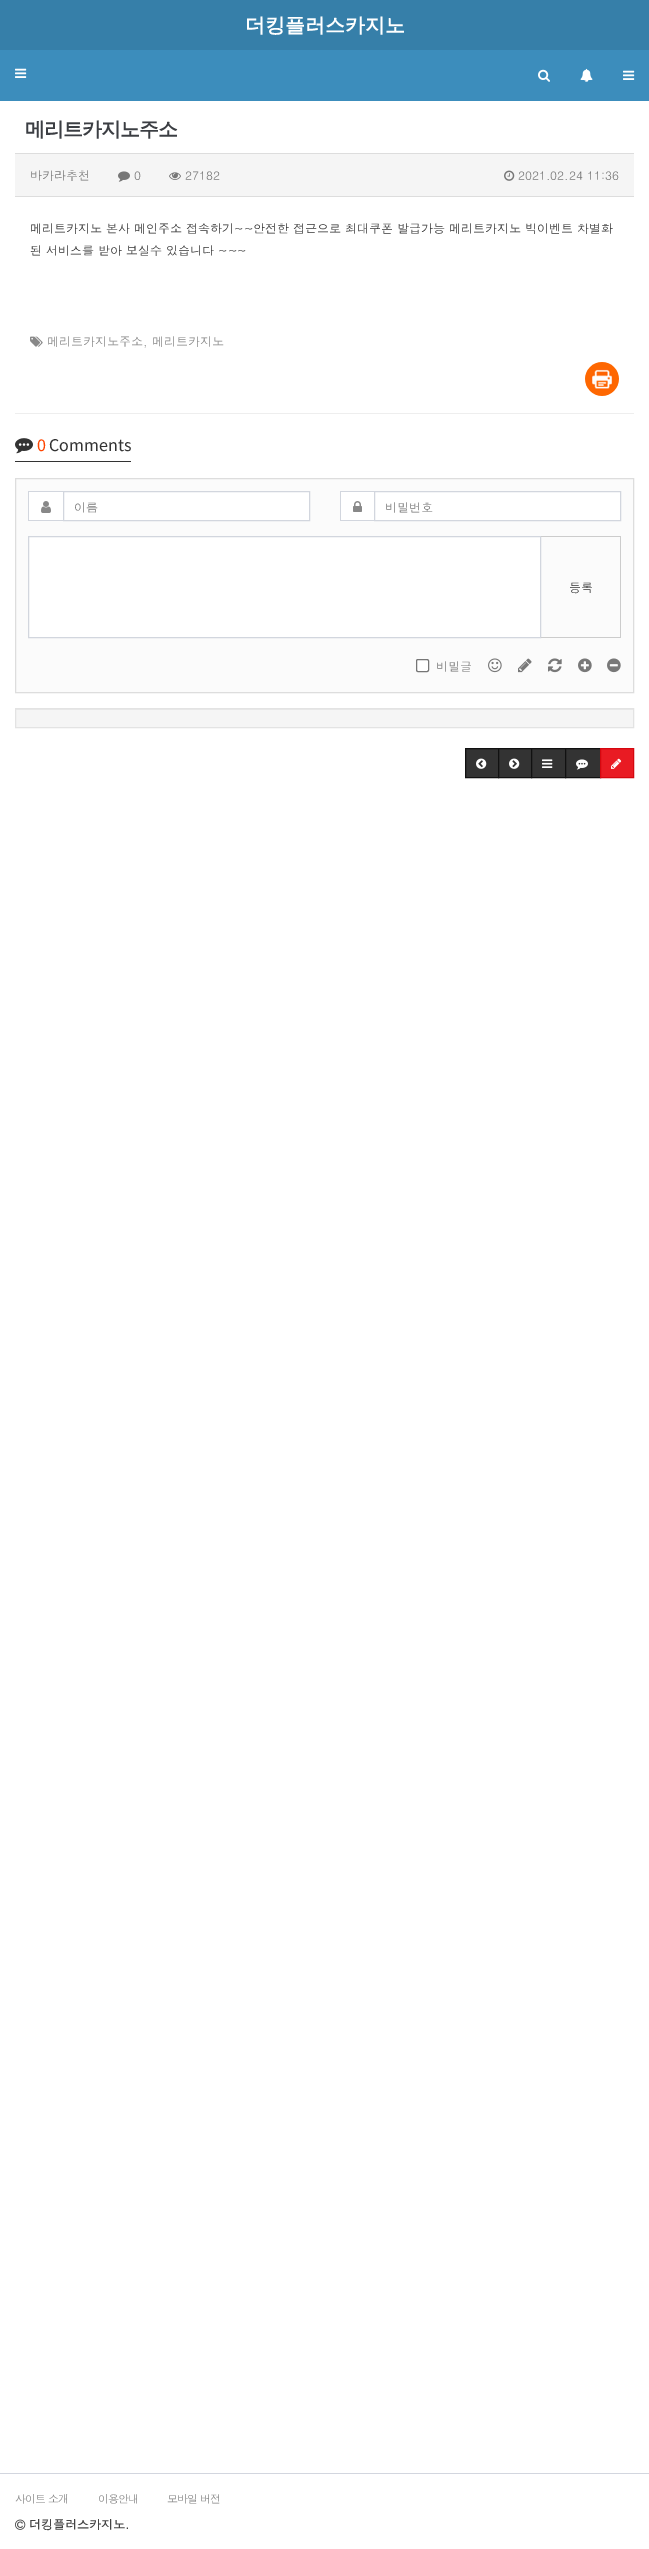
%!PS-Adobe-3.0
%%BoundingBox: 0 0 649 2549
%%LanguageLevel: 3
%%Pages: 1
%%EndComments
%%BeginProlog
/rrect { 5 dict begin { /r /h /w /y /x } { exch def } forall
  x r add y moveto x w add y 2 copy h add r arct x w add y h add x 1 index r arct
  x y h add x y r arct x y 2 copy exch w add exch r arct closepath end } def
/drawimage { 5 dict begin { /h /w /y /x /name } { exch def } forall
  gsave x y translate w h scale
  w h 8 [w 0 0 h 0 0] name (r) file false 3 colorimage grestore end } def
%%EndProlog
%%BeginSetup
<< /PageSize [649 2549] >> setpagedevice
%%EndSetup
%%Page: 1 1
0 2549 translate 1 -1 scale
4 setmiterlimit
1 setgray
0 0 649 2549 rectfill
0.212 0.498 0.663 setrgbcolor
0 0 649 50 rectfill
0.235 0.553 0.737 setrgbcolor
0 50 649 51 rectfill
(images/1.raw) 15 68 12 10 drawimage
(images/2.raw) 538 69 12 13 drawimage
(images/3.raw) 580 68 13 14 drawimage
(images/1.raw) 623 70 12 10 drawimage
0.867 setgray
15 153 619 1 rectfill
0.961 setgray
15 154 619 42 rectfill
0.867 setgray
15 196 619 1 rectfill
(images/4.raw) 118 171 12 11 drawimage
(images/5.raw) 169 172 12 8 drawimage
(images/6.raw) 504 170 11 11 drawimage
(images/7.raw) 30 336 13 11 drawimage
(images/8.raw) 585 362 34 34 drawimage
0.933 setgray
15 413 619 1 rectfill
0.2 setgray
15 461 116 1 rectfill
(images/9.raw) 15 438 18 16 drawimage
0.984 setgray
newpath 15.5 478.5 moveto 633.5 478.5 lineto 633.5 692.5 lineto 15.5 692.5 lineto closepath gsave fill grestore
0.867 setgray
stroke
1 setgray
29 492 34 28 rectfill
0.824 0.839 0.871 setrgbcolor
28 491 35 1 rectfill
28 520 35 1 rectfill
28 491 1 30 rectfill
(images/10.raw) 41 501 10 12 drawimage
1 setgray
newpath 63.5 491.5 moveto 309.5 491.5 lineto 309.5 520.5 lineto 63.5 520.5 lineto closepath gsave fill grestore
0.824 0.839 0.871 setrgbcolor
stroke
1 setgray
341 492 33 28 rectfill
0.824 0.839 0.871 setrgbcolor
340 491 34 1 rectfill
340 520 34 1 rectfill
340 491 1 30 rectfill
(images/11.raw) 353 501 9 11 drawimage
1 setgray
newpath 374.5 491.5 moveto 620.5 491.5 lineto 620.5 520.5 lineto 374.5 520.5 lineto closepath gsave fill grestore
0.824 0.839 0.871 setrgbcolor
stroke
1 setgray
newpath 28.5 536.5 moveto 540.5 536.5 lineto 540.5 637.5 lineto 28.5 637.5 lineto closepath gsave fill grestore
0.824 0.839 0.871 setrgbcolor
stroke
0.8 setgray
541 536 80 1 rectfill
620 536 1 102 rectfill
541 637 80 1 rectfill
1 setgray
416.5 659.5 12 12 1.5 rrect gsave fill grestore
0.463 setgray
stroke
(images/12.raw) 488 658 14 15 drawimage
(images/13.raw) 518 658 14 15 drawimage
(images/14.raw) 548 658 14 15 drawimage
(images/15.raw) 578 658 14 15 drawimage
(images/16.raw) 607 658 14 15 drawimage
0.961 setgray
16 710 617 17 rectfill
0.914 setgray
16 709 617 1 rectfill
0.89 setgray
15.5 708.5 618 19 rectstroke
0.2 setgray
newpath 465.5 748.5 moveto 498.5 748.5 lineto 498.5 777.5 lineto 465.5 777.5 lineto closepath gsave fill grestore
0.067 setgray
stroke
(images/17.raw) 476 758 11 11 drawimage
0.2 setgray
newpath 498.5 748.5 moveto 531.5 748.5 lineto 531.5 777.5 lineto 498.5 777.5 lineto closepath gsave fill grestore
0.067 setgray
stroke
(images/18.raw) 509 758 11 11 drawimage
0.2 setgray
newpath 531.5 748.5 moveto 565.5 748.5 lineto 565.5 777.5 lineto 531.5 777.5 lineto closepath gsave fill grestore
0.067 setgray
stroke
(images/19.raw) 542 759 11 9 drawimage
0.2 setgray
newpath 565.5 748.5 moveto 600.5 748.5 lineto 600.5 777.5 lineto 565.5 777.5 lineto closepath gsave fill grestore
0.067 setgray
stroke
(images/20.raw) 576 759 12 11 drawimage
0.914 0.106 0.137 setrgbcolor
newpath 600.5 748.5 moveto 633.5 748.5 lineto 633.5 777.5 lineto 600.5 777.5 lineto closepath gsave fill grestore
0.835 0.027 0.059 setrgbcolor
stroke
(images/21.raw) 611 758 11 11 drawimage
0.824 0.839 0.871 setrgbcolor
0 2473 649 1 rectfill
(images/22.raw) 15 2519 11 11 drawimage
/WenQuanYiZenHei-Bold [20 0 0 -20 0 0] selectfont
1 setgray
245 32 moveto (더킹플러스카지노) show
0.231 0.243 0.263 setrgbcolor
25 136 moveto -1 0 (메리트카지노주소) ashow
/Dotum-Regular [12 0 0 -12 0 0] selectfont
0.471 setgray
30 180 moveto (바카라추천) show
134 180 moveto (0) show
185 180 moveto (27182) show
518 180 moveto (2021.02.24 11:36) show
0.2 setgray
30 233 moveto (메리트카지노 본사 메인주소 접속하기~~안전한 접근으로 최대쿠폰 발급가능 메리트카지노 빅이벤트 차별화) show
30 255 moveto (된 서비스를 받아 보실수 있습니다 ~~~) show
0.533 setgray
47 346 moveto (메리트카지노주소, 메리트카지노) show
/SourceSansPro-Regular [18 0 0 -18 0 0] selectfont
1 0.271 0 setrgbcolor
37 451 moveto (0) show
0.2 setgray
49 451 moveto (Comments) show
/Dotum-Regular [12 0 0 -12 0 0] selectfont
0.471 setgray
74 512 moveto (이름) show
385 512 moveto (비밀번호) show
0.2 setgray
569 592 moveto (등록) show
0.471 setgray
436 671 moveto (비밀글) show
/Dotum-Regular [11 0 0 -11 0 0] selectfont
0.533 setgray
15 2503 moveto -1 0 (사이트 소개) ashow
98 2503 moveto -1 0 (이용안내) ashow
167 2503 moveto -1 0 (모바일 버전) ashow
/Dotum-Bold [12 0 0 -12 0 0] selectfont
0.267 setgray
29 2529 moveto (더킹플러스카지노.) show
showpage
%%EOF
